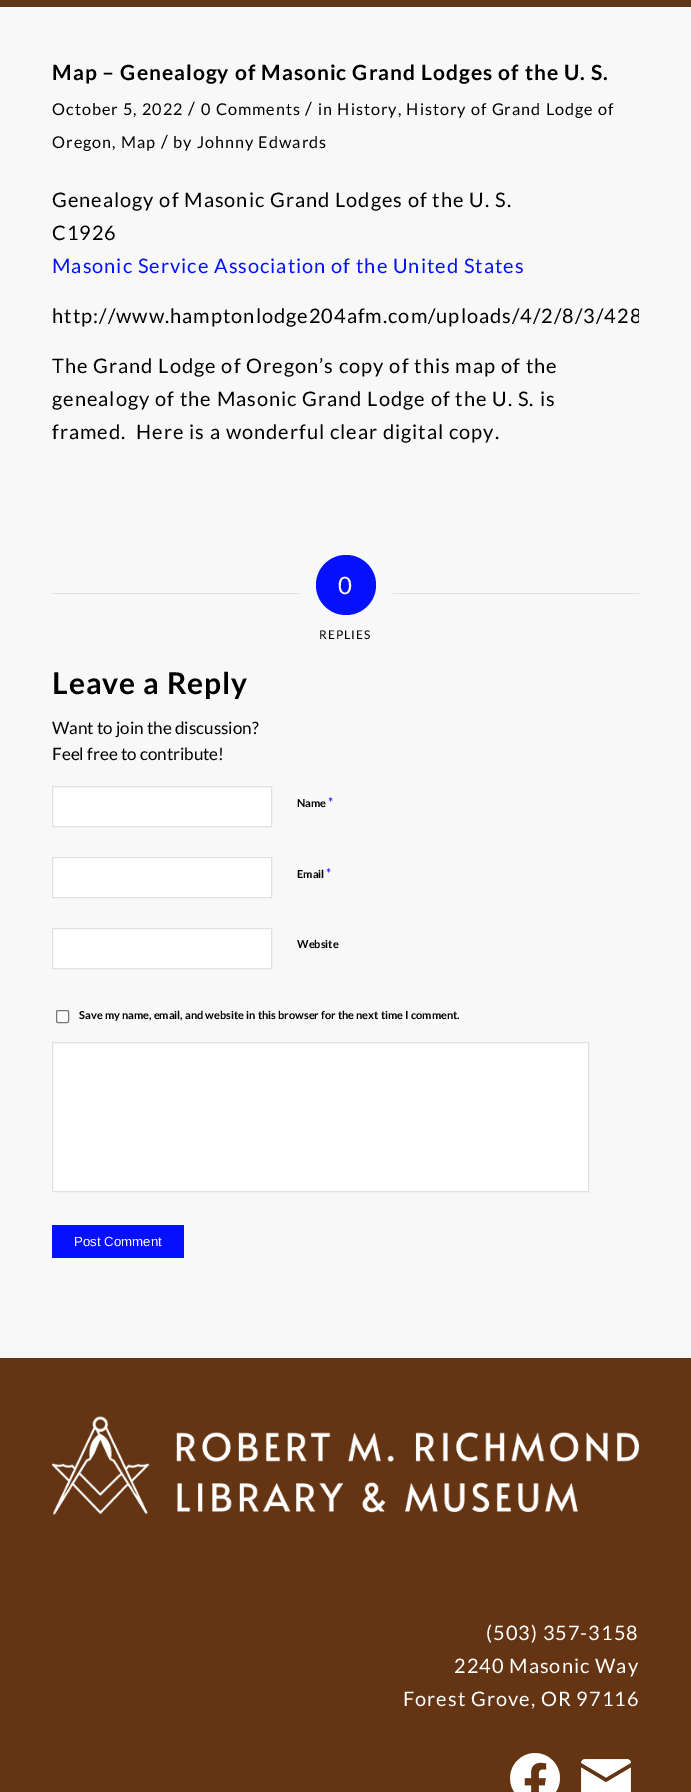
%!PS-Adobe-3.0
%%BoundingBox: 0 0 691 1792
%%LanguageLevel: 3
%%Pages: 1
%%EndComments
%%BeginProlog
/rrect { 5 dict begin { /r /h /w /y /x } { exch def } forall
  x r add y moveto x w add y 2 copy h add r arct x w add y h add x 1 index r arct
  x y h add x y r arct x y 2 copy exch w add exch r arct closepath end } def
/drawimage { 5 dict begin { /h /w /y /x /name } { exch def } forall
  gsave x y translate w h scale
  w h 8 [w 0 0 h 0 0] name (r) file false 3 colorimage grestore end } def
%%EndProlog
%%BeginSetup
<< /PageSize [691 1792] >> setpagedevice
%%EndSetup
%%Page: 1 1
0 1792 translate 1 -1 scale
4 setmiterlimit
0.973 setgray
0 0 691 1792 rectfill
0.369 0.212 0.102 setrgbcolor
0 0 691 7 rectfill
1 setgray
0 7 691 1 rectfill
0.882 setgray
52 593 247 1 rectfill
0.02 0.067 0.988 setrgbcolor
newpath 346 585 30 0 360 arc closepath fill
0.882 setgray
393 593 246 1 rectfill
1 setgray
newpath 52.5 786.5 moveto 271.5 786.5 lineto 271.5 826.5 lineto 52.5 826.5 lineto closepath gsave fill grestore
0.882 setgray
stroke
1 setgray
newpath 52.5 857.5 moveto 271.5 857.5 lineto 271.5 897.5 lineto 52.5 897.5 lineto closepath gsave fill grestore
0.882 setgray
stroke
1 setgray
newpath 52.5 928.5 moveto 271.5 928.5 lineto 271.5 968.5 lineto 52.5 968.5 lineto closepath gsave fill grestore
0.882 setgray
stroke
1 setgray
56.5 1010.5 12 12 1.5 rrect gsave fill grestore
0.463 setgray
stroke
1 setgray
newpath 52.5 1042.5 moveto 588.5 1042.5 lineto 588.5 1191.5 lineto 52.5 1191.5 lineto closepath gsave fill grestore
0.882 setgray
stroke
0.02 0.067 0.988 setrgbcolor
52 1225 132 33 rectfill
0.396 0.204 0.075 setrgbcolor
0 1358 691 434 rectfill
(images/1.raw) 52 1416 587 99 drawimage
(images/2.raw) 510 1753 50 39 drawimage
(images/3.raw) 581 1759 50 33 drawimage
/Lato-Bold [21 0 0 -21 0 0] selectfont
0 setgray
52 80 moveto 1 0 (Map – Genealogy of Masonic Grand Lodges of the U. S.) ashow
/Lato-Regular [16.25 0 0 -16.25 0 0] selectfont
52 115 moveto 1 0 (October 5, 2022) ashow
/Lato-Regular [18 0 0 -18 0 0] selectfont
188 115 moveto 1 0 (/) ashow
/Lato-Regular [16.25 0 0 -16.25 0 0] selectfont
201 115 moveto 1 0 (0 Comments) ashow
/Lato-Regular [18 0 0 -18 0 0] selectfont
305 115 moveto 1 0 (/) ashow
/Lato-Regular [16.25 0 0 -16.25 0 0] selectfont
318 115 moveto 1 0 (in History, History of Grand Lodge of) ashow
52 148 moveto 1 0 (Oregon, Map) ashow
/Lato-Regular [18 0 0 -18 0 0] selectfont
161 148 moveto 1 0 (/) ashow
/Lato-Regular [16.25 0 0 -16.25 0 0] selectfont
173 148 moveto 1 0 (by Johnny Edwards) ashow
/Lato-Regular [20 0 0 -20 0 0] selectfont
52 207 moveto 1 0 (Genealogy of Masonic Grand Lodges of the U. S.) ashow
52 240 moveto 1 0 (C1926) ashow
0.02 0.067 0.988 setrgbcolor
52 273 moveto 1 0 (Masonic Service Association of the United States) ashow
gsave
52 58 587 497 rectclip
0 setgray
52 323 moveto 1 0 (http://www.hamptonlodge204afm.com/uploads/4/2/8/3/428) ashow
grestore
0 setgray
52 373 moveto 1 0 (The Grand Lodge of Oregon’s copy of this map of the) ashow
52 406 moveto 1 0 (genealogy of the Masonic Grand Lodge of the U. S. is) ashow
52 439 moveto 1 0 (framed.  Here is a wonderful clear digital copy.) ashow
/Lato-Regular [24 0 0 -24 0 0] selectfont
1 setgray
338 594 moveto 1 0 (0) ashow
/Lato-Regular [12 0 0 -12 0 0] selectfont
0 setgray
319 639 moveto 1 0 (REPLIES) ashow
/Lato-Bold [30 0 0 -30 0 0] selectfont
52 694 moveto 1 0 (Leave a Reply) ashow
/Lato-Regular [17 0 0 -17 0 0] selectfont
52 734 moveto (Want to join the discussion?) show
52 760 moveto (Feel free to contribute!) show
/Lato-Bold [11 0 0 -11 0 0] selectfont
297 807 moveto (Name) show
/Lato-Regular [13 0 0 -13 0 0] selectfont
0.02 0.067 0.988 setrgbcolor
328 807 moveto (*) show
/Lato-Bold [11 0 0 -11 0 0] selectfont
0 setgray
297 878 moveto (Email) show
/Lato-Regular [13 0 0 -13 0 0] selectfont
0.02 0.067 0.988 setrgbcolor
326 878 moveto (*) show
/Lato-Bold [11 0 0 -11 0 0] selectfont
0 setgray
297 948 moveto (Website) show
79 1019 moveto (Save my name, email, and website in this browser for the next time I comment.) show
/LiberationSans-Regular [13.25 0 0 -13.25 0 0] selectfont
1 setgray
74 1246 moveto (Post Comment) show
/Lato-Regular [20 0 0 -20 0 0] selectfont
486 1640 moveto 1 0 (\(503\) 357-3158) ashow
454 1673 moveto 1 0 (2240 Masonic Way) ashow
403 1706 moveto 1 0 (Forest Grove, OR 97116) ashow
showpage
%%EOF
